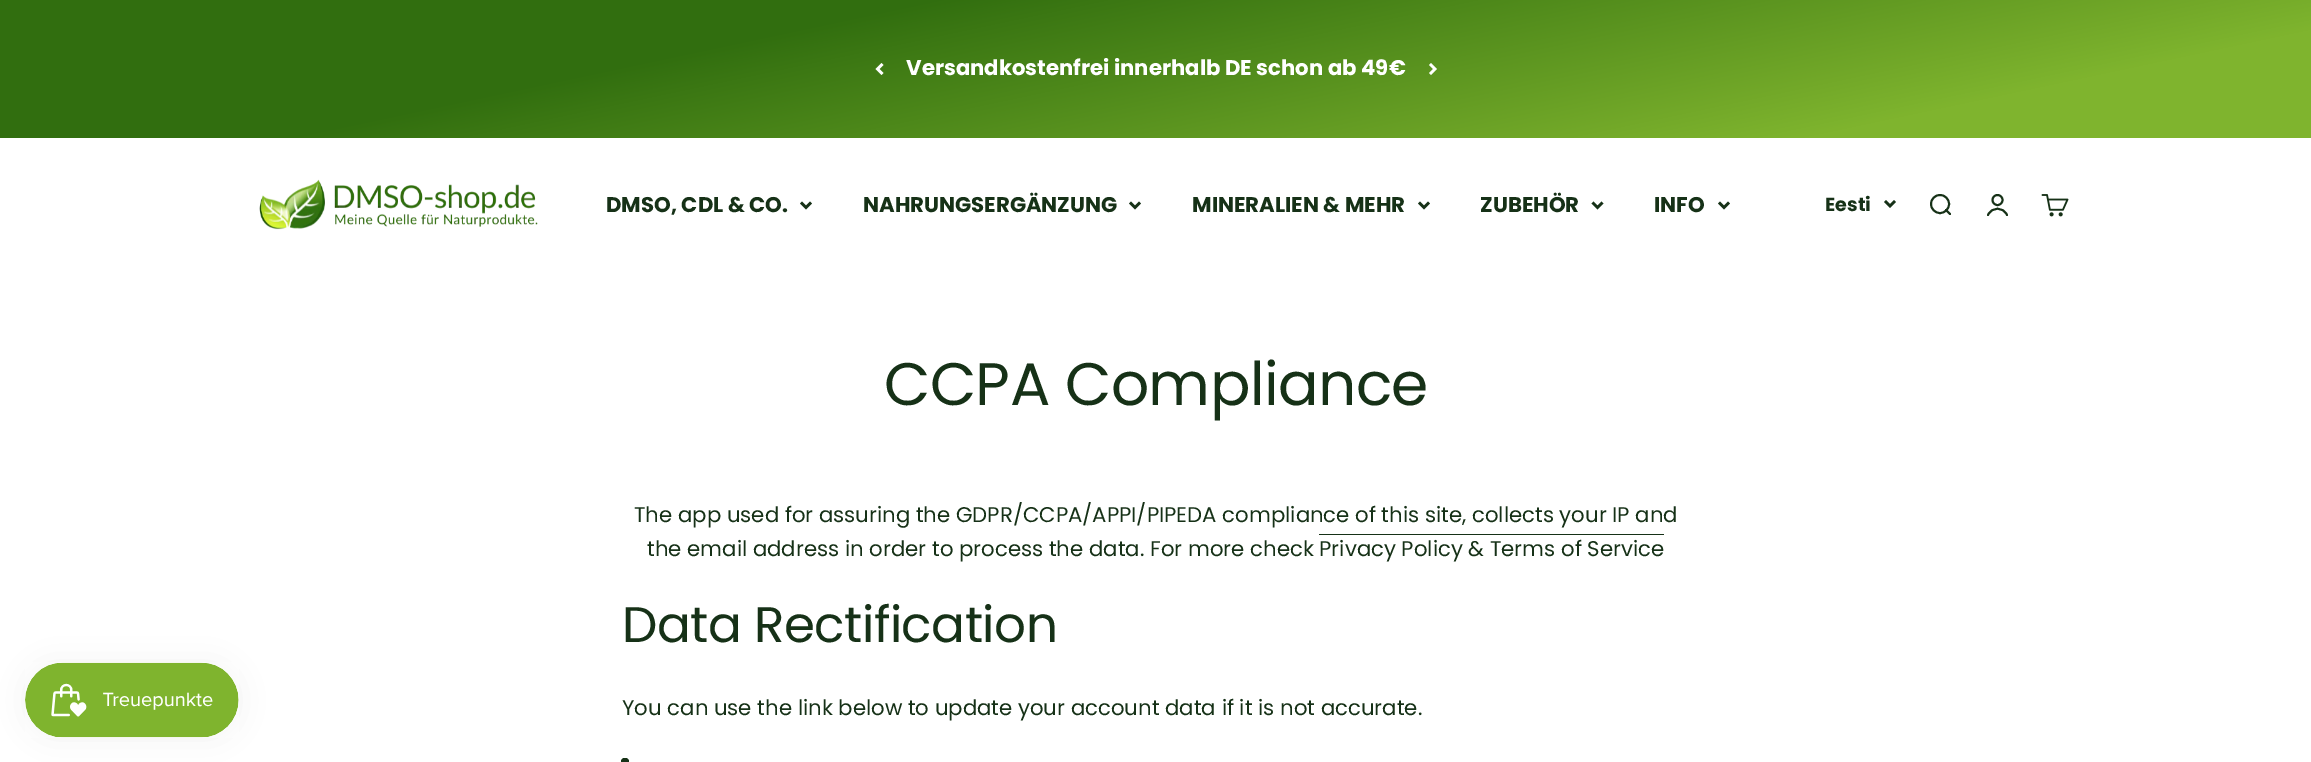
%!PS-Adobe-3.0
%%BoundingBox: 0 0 2311 762
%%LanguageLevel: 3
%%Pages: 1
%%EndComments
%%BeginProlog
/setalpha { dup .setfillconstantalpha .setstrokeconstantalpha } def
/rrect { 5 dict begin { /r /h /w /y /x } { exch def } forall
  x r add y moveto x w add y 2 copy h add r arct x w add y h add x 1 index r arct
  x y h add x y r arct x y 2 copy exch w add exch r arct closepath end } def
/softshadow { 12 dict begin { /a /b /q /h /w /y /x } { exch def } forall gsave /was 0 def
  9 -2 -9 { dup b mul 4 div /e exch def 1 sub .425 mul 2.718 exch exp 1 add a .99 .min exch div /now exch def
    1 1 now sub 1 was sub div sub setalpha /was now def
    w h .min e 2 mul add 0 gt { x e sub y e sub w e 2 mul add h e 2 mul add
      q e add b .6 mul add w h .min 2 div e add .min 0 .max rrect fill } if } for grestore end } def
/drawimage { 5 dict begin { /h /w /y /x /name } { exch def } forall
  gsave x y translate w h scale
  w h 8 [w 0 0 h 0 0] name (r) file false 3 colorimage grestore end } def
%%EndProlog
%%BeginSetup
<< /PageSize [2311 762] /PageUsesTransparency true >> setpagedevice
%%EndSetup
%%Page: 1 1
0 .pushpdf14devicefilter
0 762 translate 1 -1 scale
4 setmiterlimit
1 setgray
0 0 2311 762 rectfill
gsave newpath 0 0 moveto 2311 0 lineto 2311 138 lineto 0 138 lineto closepath clip newpath
<< /ShadingType 2 /ColorSpace /DeviceRGB /Coords [1092 -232 1220 370] /Extend [true true] /Function << /FunctionType 3 /Domain [0 1] /Functions [<< /FunctionType 2 /Domain [0 1] /C0 [0.192 0.431 0.059] /C1 [0.192 0.431 0.059] /N 1 >> << /FunctionType 2 /Domain [0 1] /C0 [0.192 0.431 0.059] /C1 [0.498 0.706 0.18] /N 1 >> << /FunctionType 2 /Domain [0 1] /C0 [0.498 0.706 0.18] /C1 [0.498 0.706 0.18] /N 1 >>] /Bounds [0.31 0.83] /Encode [0 1 0 1 0 1] >> >> shfill grestore
2.5 setlinewidth
newpath 882.5 64 moveto 877.5 69 lineto 882.5 74 lineto stroke
newpath 1430 74 moveto 1435 69 lineto 1430 64 lineto stroke
(images/1.raw) 259 179 279 51 drawimage
0.086 0.192 0.09 setrgbcolor
newpath 801 202.5 moveto 806 207.5 lineto 811 202.5 lineto stroke
newpath 1130 202.5 moveto 1135 207.5 lineto 1140 202.5 lineto stroke
newpath 1419 202.5 moveto 1424 207.5 lineto 1429 202.5 lineto stroke
newpath 1592.5 202.5 moveto 1597.5 207.5 lineto 1602.5 202.5 lineto stroke
newpath 1719 202.5 moveto 1724 207.5 lineto 1729 202.5 lineto stroke
newpath 1885 201 moveto 1890 206 lineto 1895 201 lineto stroke
1.9 setlinewidth
newpath 1940 204 9 0 360 arc closepath stroke
1 setlinecap
1 setlinejoin
newpath 1946 210 moveto 1950 214 lineto stroke
0 setlinecap
0 setlinejoin
newpath 1997.5 200 5 0 360 arc closepath stroke
1 setlinecap
newpath 1988 215 moveto 1992 206.5 2003 206.5 2007 215 curveto stroke
(images/2.raw) 2041 194 28 23 drawimage
0 setgray
25 663 214 75 37.5 15.5 0.05 softshadow
(images/3.raw) 25 662 214 76 drawimage
0.086 0.192 0.09 setrgbcolor
1319 534 345 1 rectfill
621 758 8 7 3.5 rrect fill
/Poppins-Bold [21.25 0 0 -21.25 0 0] selectfont
1 setgray
906 75 moveto (Versandkostenfrei innerhalb DE schon ab 49€) show
0.086 0.192 0.09 setrgbcolor
606 212 moveto (DMSO, CDL & CO.) show
863 212 moveto (NAHRUNGSERGÄNZUNG) show
1192 212 moveto (MINERALIEN & MEHR) show
1480 212 moveto (ZUBEHÖR) show
1654 212 moveto (INFO) show
/Poppins-Bold [19 0 0 -19 0 0] selectfont
1825 211 moveto (Eesti) show
/Poppins-Regular [60 0 0 -60 0 0] selectfont
884 405 moveto -0.6 0 (CCPA Compliance) ashow
/Poppins-Regular [21.25 0 0 -21.25 0 0] selectfont
634 522 moveto (The app used for assuring the GDPR/CCPA/APPI/PIPEDA compliance of this site, collects your IP and) show
647 556 moveto (the email address in order to process the data. For more check Privacy Policy & Terms of Service) show
/Poppins-Regular [50 0 0 -50 0 0] selectfont
622 642 moveto -0.5 0 (Data Rectification) ashow
/Poppins-Regular [21.25 0 0 -21.25 0 0] selectfont
622 715 moveto (You can use the link below to update your account data if it is not accurate.) show
.poppdf14devicefilter showpage
%%EOF
